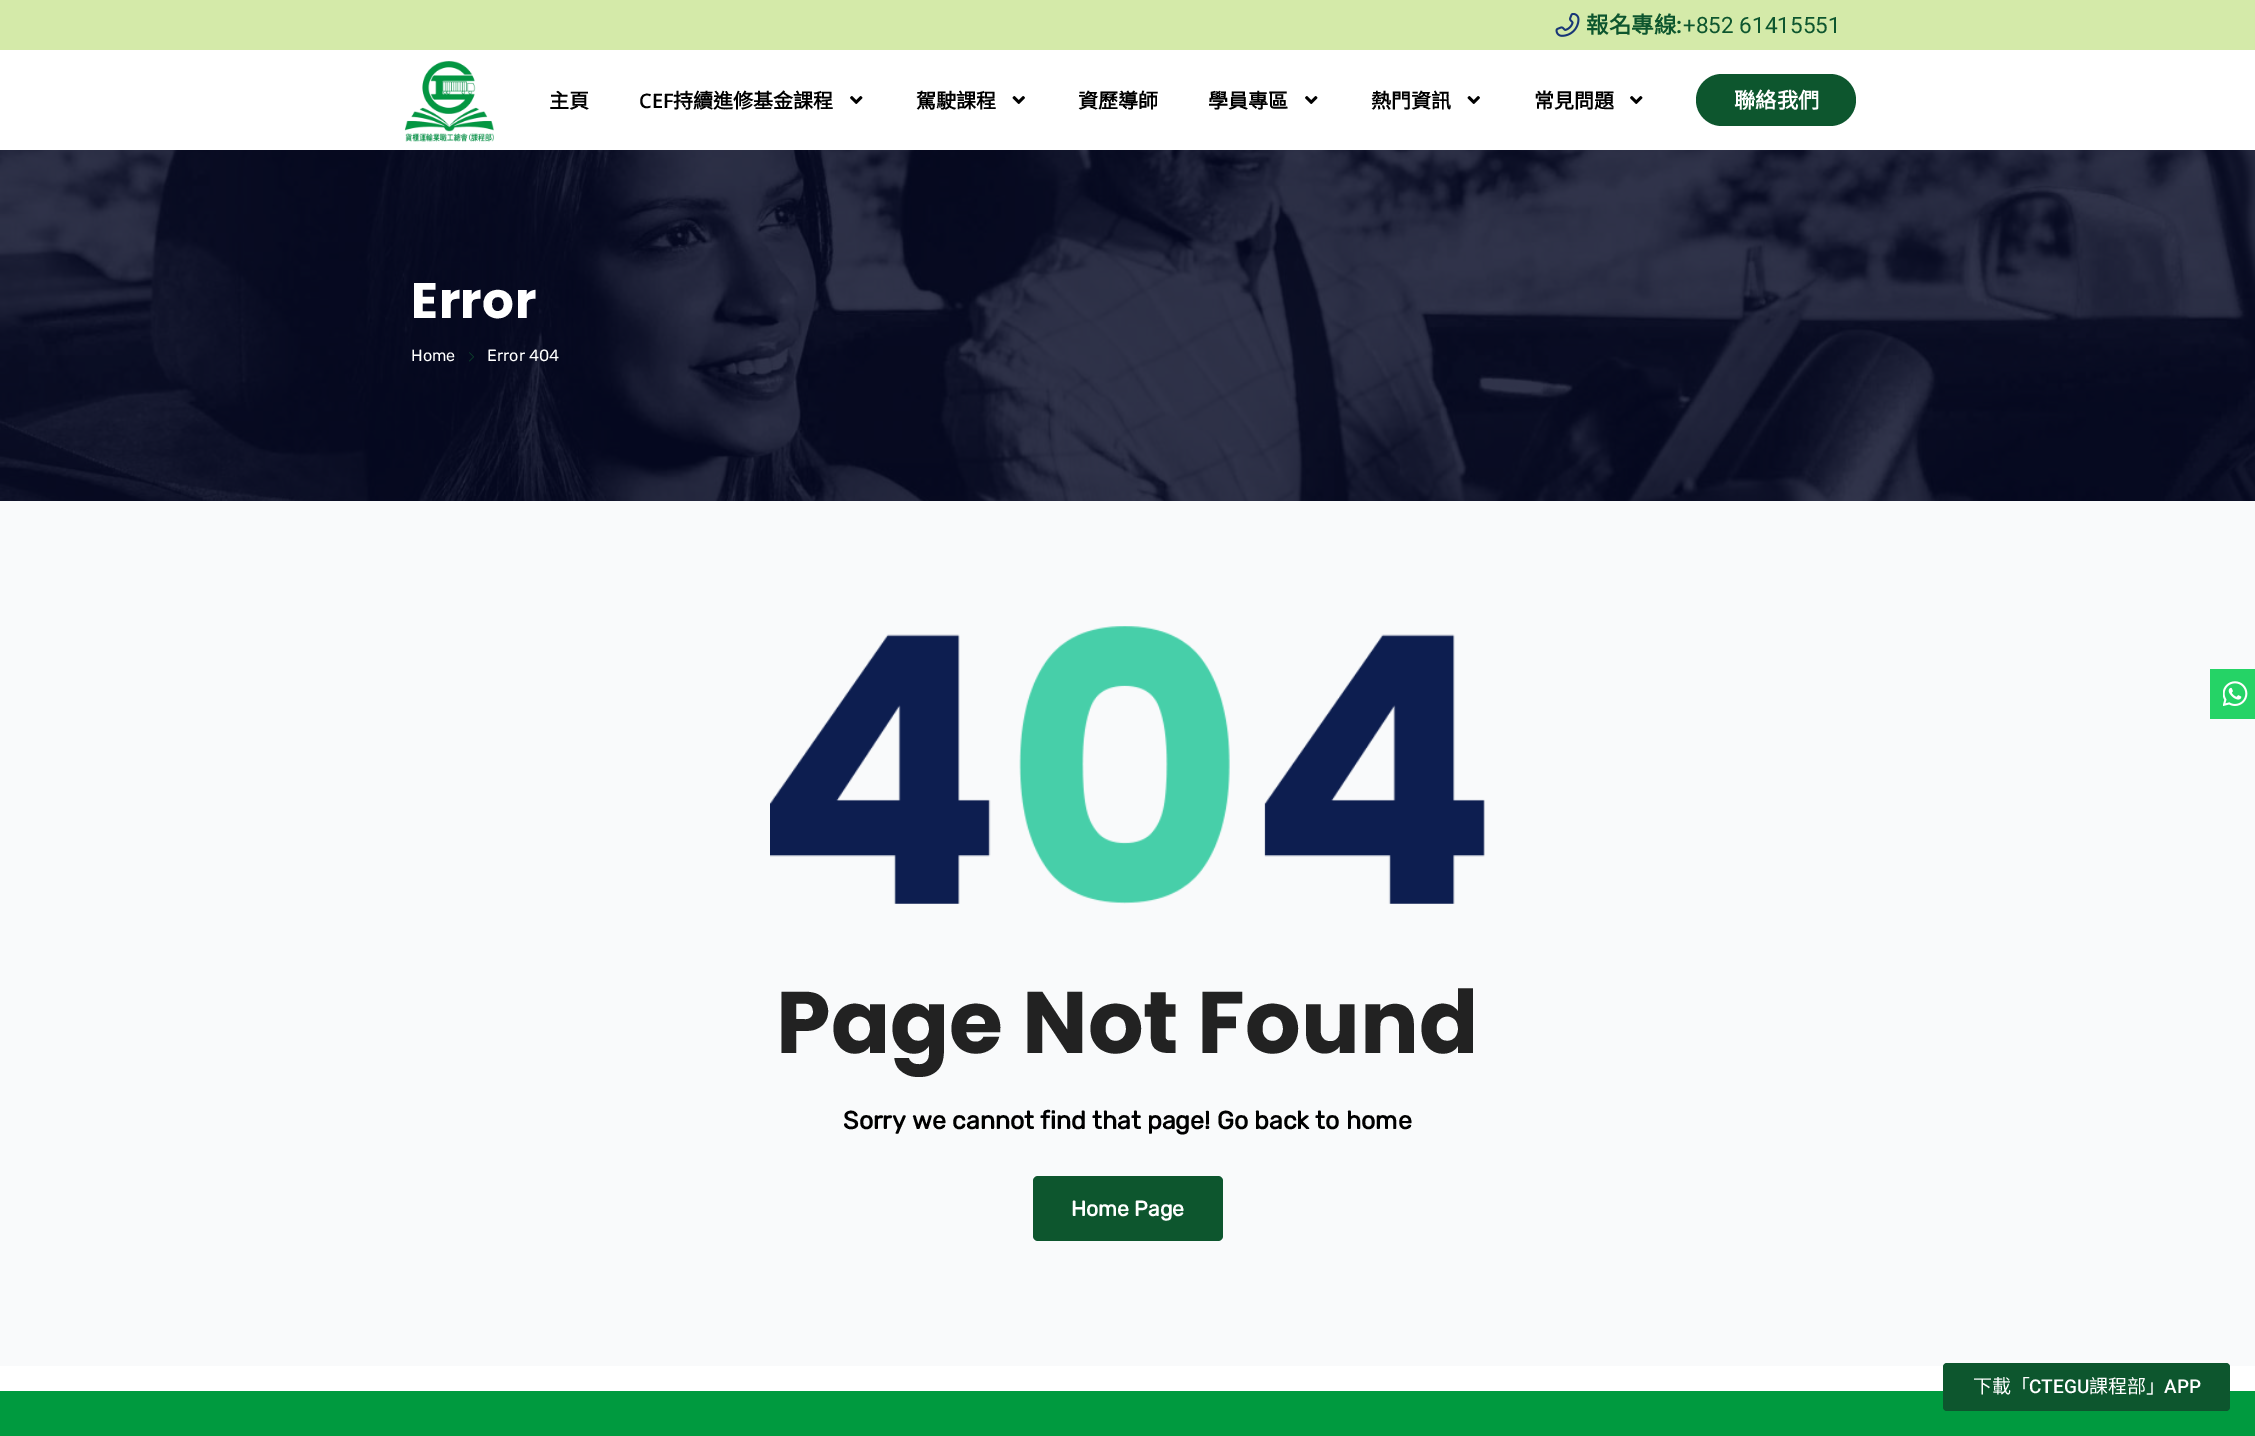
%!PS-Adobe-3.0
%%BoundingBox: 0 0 2255 1436
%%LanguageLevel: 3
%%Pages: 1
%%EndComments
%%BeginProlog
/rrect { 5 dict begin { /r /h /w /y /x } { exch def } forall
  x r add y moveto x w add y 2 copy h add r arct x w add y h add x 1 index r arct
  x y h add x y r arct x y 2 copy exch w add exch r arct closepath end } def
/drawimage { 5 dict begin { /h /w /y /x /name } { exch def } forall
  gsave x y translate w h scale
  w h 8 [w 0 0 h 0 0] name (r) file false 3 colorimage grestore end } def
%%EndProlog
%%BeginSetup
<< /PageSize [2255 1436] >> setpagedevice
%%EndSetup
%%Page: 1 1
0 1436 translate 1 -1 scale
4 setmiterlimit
1 setgray
0 0 2255 1436 rectfill
0.831 0.918 0.663 setrgbcolor
0 0 2255 50 rectfill
(images/1.raw) 1555 13 25 24 drawimage
(images/2.raw) 404 61 90 81 drawimage
(images/3.raw) 850 96 13 8 drawimage
(images/4.raw) 1012 96 13 8 drawimage
(images/3.raw) 1305 96 13 8 drawimage
(images/4.raw) 1467 96 13 8 drawimage
(images/3.raw) 1630 96 13 8 drawimage
0.051 0.337 0.18 setrgbcolor
1696 74 160 52 26 rrect fill
(images/5.raw) 0 150 2255 351 drawimage
(images/6.raw) 469 352 5 10 drawimage
0.976 0.98 0.984 setrgbcolor
0 501 2255 865 rectfill
(images/7.raw) 770 626 715 278 drawimage
0.051 0.337 0.18 setrgbcolor
1033 1176 190 65 5 rrect fill
0.145 0.827 0.4 setrgbcolor
2210 669 45 50 rectfill
(images/8.raw) 2223 681 25 25 drawimage
0 0.604 0.247 setrgbcolor
0 1391 2255 45 rectfill
0.051 0.337 0.18 setrgbcolor
1943 1363 287 48 4 rrect fill
/NotoSansCJKTC-Bold [22.5 0 0 -22.5 0 0] selectfont
1586 33 moveto (報名專線) show
/Roboto-SemiBold [22.5 0 0 -22.5 0 0] selectfont
1676 33 moveto (:) show
/Roboto-Regular [22.5 0 0 -22.5 0 0] selectfont
1683 33 moveto (+852 61415551) show
/NotoSansCJKTC-Bold [20 0 0 -20 0 0] selectfont
0 setgray
549 108 moveto (主頁) show
/OpenSans-SemiBold [20 0 0 -20 0 0] selectfont
639 108 moveto (CEF) show
/NotoSansCJKTC-Bold [20 0 0 -20 0 0] selectfont
673 108 moveto (持續進修基金課程) show
916 108 moveto (駕駛課程) show
1078 108 moveto (資歷導師) show
1208 108 moveto (學員專區) show
1371 108 moveto (熱門資訊) show
1534 108 moveto (常見問題) show
/NotoSansCJKTC-Bold [21.25 0 0 -21.25 0 0] selectfont
1 setgray
1734 108 moveto (聯絡我們) show
/Poppins-Bold [50 0 0 -50 0 0] selectfont
411 318 moveto 0.5 0 (Error) ashow
/Rubik-Light [16.25 0 0 -16.25 0 0] selectfont
411 361 moveto (Home) show
487 361 moveto (Error 404) show
/Poppins-Bold [87.5 0 0 -87.5 0 0] selectfont
0.133 setgray
776 1053 moveto (Page Not Found) show
/Rubik-Bold [25 0 0 -25 0 0] selectfont
0 setgray
843 1129 moveto (Sorry we cannot find that page! Go back to home) show
/Rubik-Bold [21.25 0 0 -21.25 0 0] selectfont
1 setgray
1071 1216 moveto (Home Page) show
/NotoSansCJKTC-Regular [19 0 0 -19 0 0] selectfont
1973 1393 moveto (下載「) show
/Roboto-Medium [19 0 0 -19 0 0] selectfont
2029 1393 moveto (CTEGU) show
/NotoSansCJKTC-Regular [19 0 0 -19 0 0] selectfont
2089 1393 moveto (課程部」) show
/Roboto-Medium [19 0 0 -19 0 0] selectfont
2164 1393 moveto (APP) show
showpage
%%EOF
